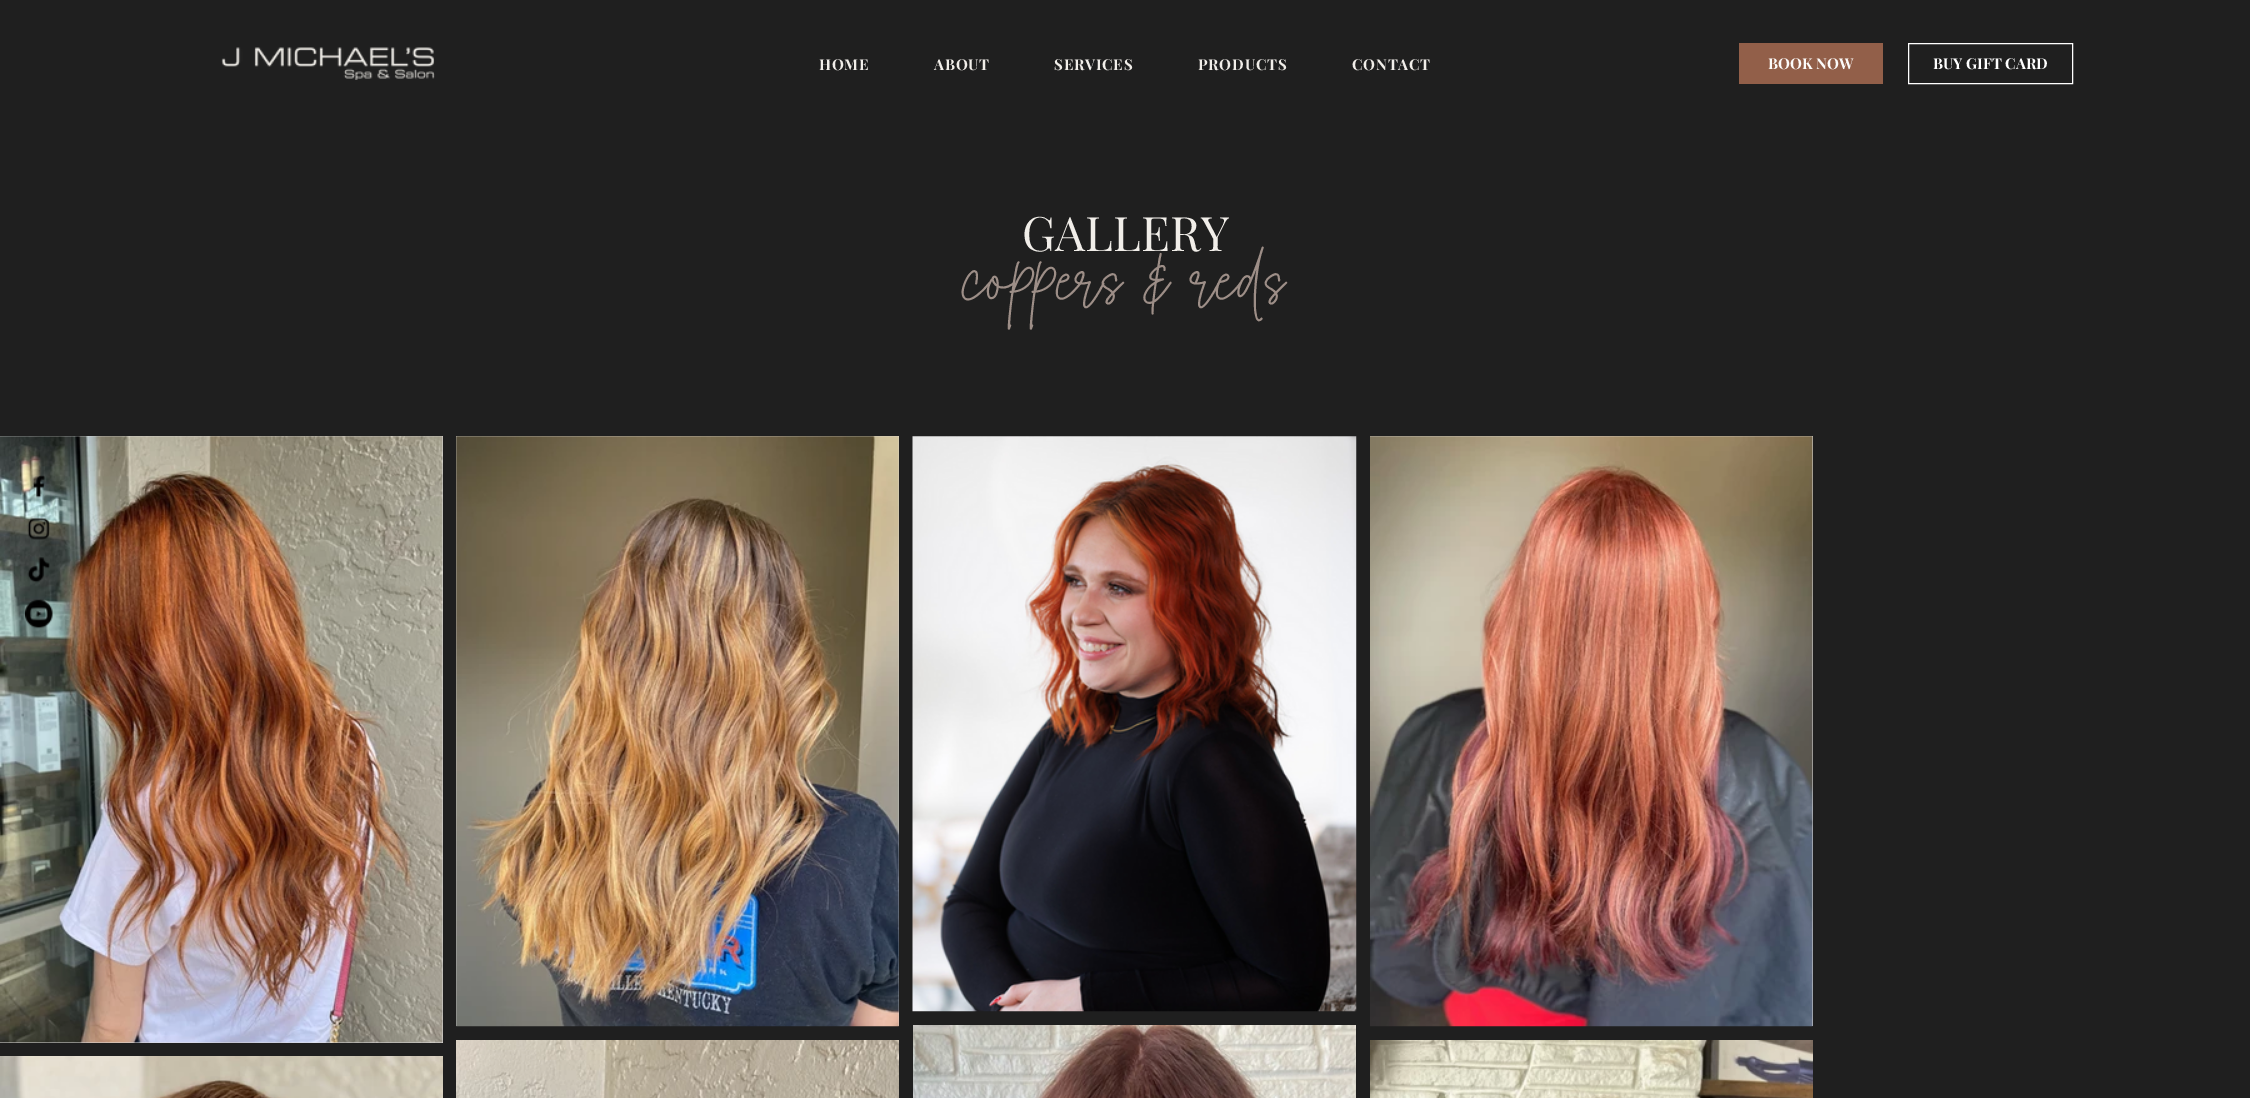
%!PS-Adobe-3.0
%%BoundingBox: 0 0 2250 1098
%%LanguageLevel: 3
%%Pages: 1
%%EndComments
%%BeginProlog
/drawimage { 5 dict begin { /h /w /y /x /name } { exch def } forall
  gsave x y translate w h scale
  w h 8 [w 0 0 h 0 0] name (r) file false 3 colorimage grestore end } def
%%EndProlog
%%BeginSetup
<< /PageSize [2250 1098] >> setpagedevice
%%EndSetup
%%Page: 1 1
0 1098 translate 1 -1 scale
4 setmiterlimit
0.122 setgray
0 0 2250 1098 rectfill
(images/1.raw) 221 47 214 33 drawimage
0.573 0.373 0.286 setrgbcolor
1739 43 144 41 rectfill
1 setgray
1908.5 43.5 164 40 rectstroke
0.878 0.871 0.871 setrgbcolor
0 436 443 607 rectfill
(images/2.raw) 0 436 443 607 drawimage
456 436 443 590 rectfill
(images/3.raw) 456 436 443 591 drawimage
(images/4.raw) 912 436 445 576 drawimage
1370 436 443 590 rectfill
(images/5.raw) 1370 436 443 591 drawimage
(images/6.raw) 0 1056 443 42 drawimage
(images/7.raw) 456 1040 443 58 drawimage
(images/8.raw) 913 1025 443 73 drawimage
(images/9.raw) 1370 1040 443 58 drawimage
(images/10.raw) 32 475 13 24 drawimage
(images/11.raw) 27 517 23 23 drawimage
(images/12.raw) 27 557 23 26 drawimage
(images/13.raw) 25 599 28 30 drawimage
/PlayfairDisplay-Bold [15 0 0 -15 0 0] selectfont
0.945 0.933 0.914 setrgbcolor
819 70 moveto 0.75 0 (HOME) ashow
934 70 moveto 0.75 0 (ABOUT) ashow
1054 70 moveto 0.75 0 (SERVICES) ashow
1198 70 moveto 0.75 0 (PRODUCTS) ashow
1352 70 moveto 0.75 0 (CONTACT) ashow
0.988 0.984 0.976 setrgbcolor
1768 69 moveto (BOOK NOW) show
1 setgray
1933 69 moveto (BUY GIFT CARD) show
/PlayfairDisplay-Regular [47.5 0 0 -47.5 0 0] selectfont
0.945 0.933 0.914 setrgbcolor
1022 251 moveto (GALLERY) show
/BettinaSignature-Regular [37.5 0 0 -37.5 0 0] selectfont
0.616 0.557 0.529 setrgbcolor
964 296 moveto (coppers & reds) show
showpage
%%EOF
